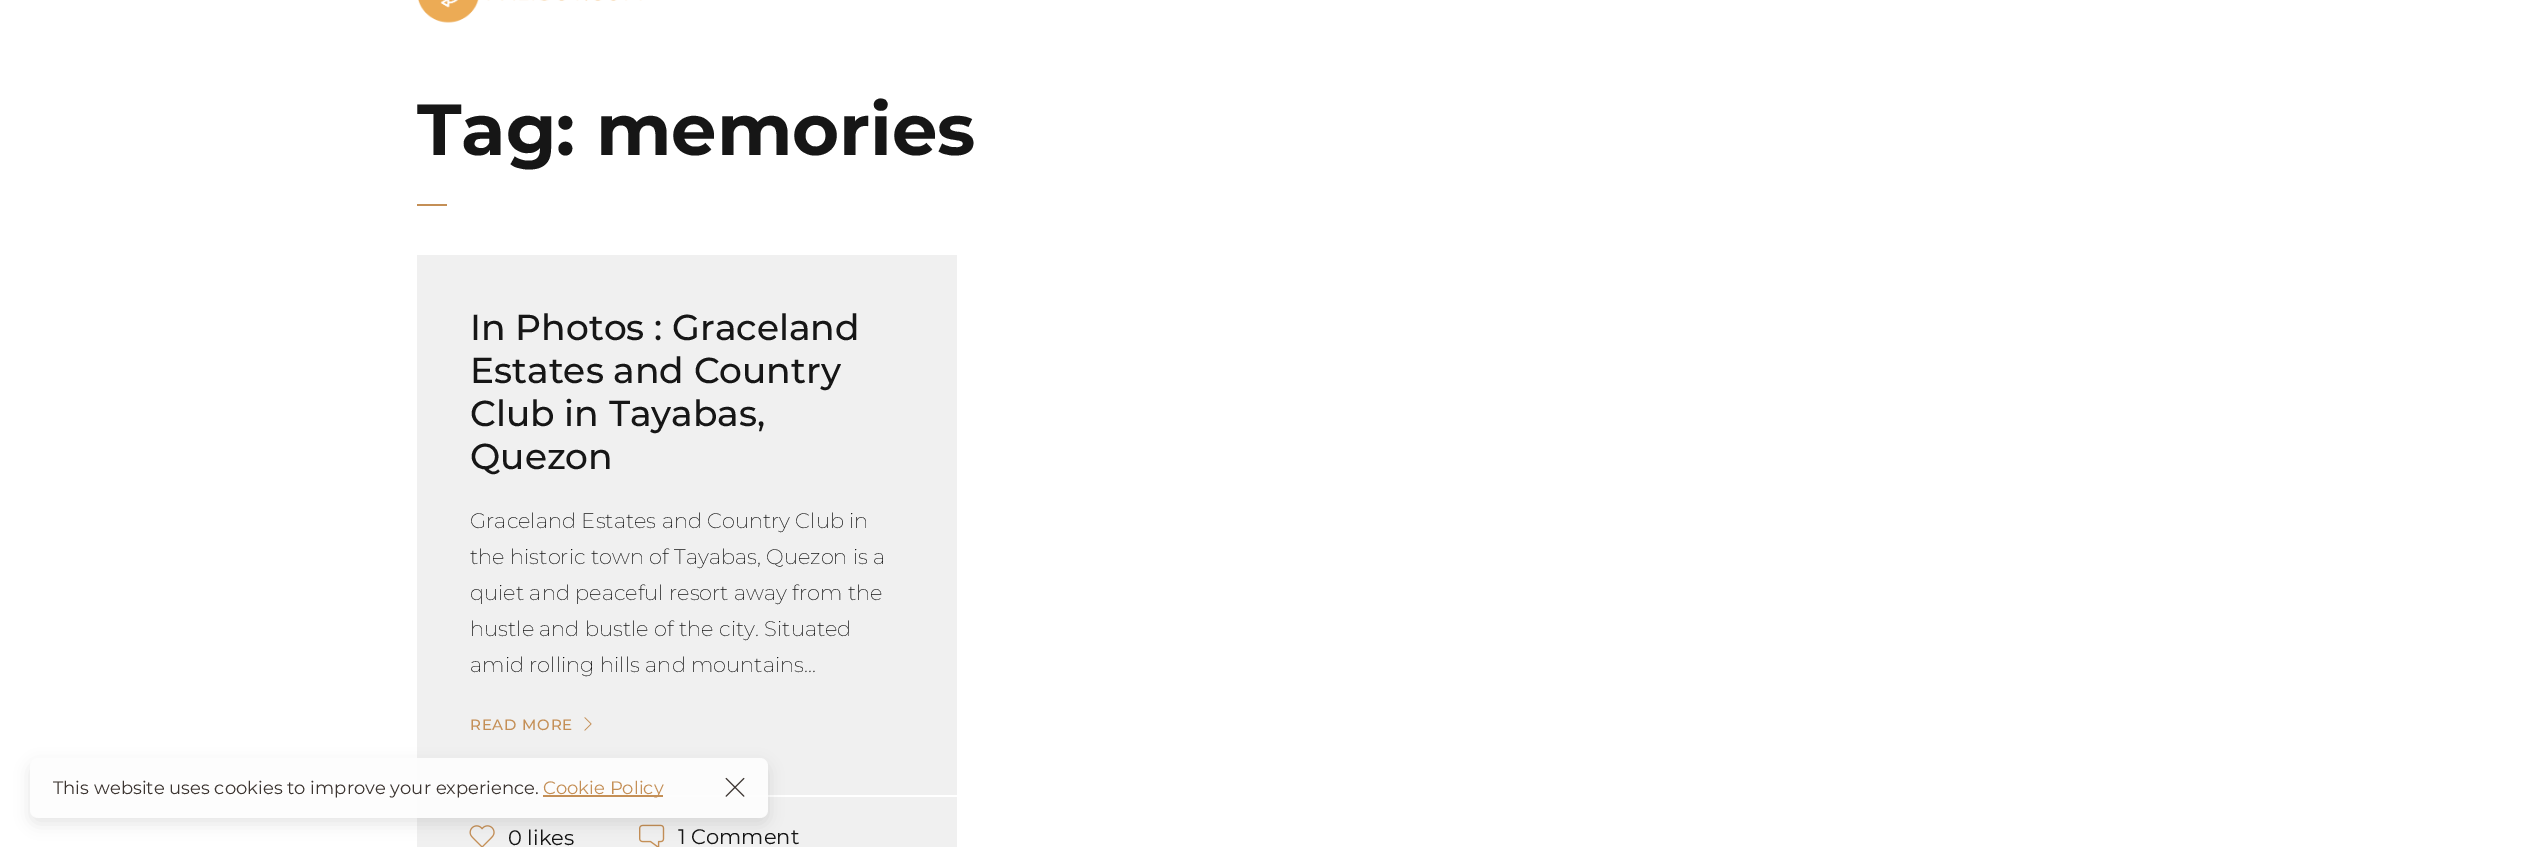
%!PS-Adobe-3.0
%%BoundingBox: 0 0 2544 847
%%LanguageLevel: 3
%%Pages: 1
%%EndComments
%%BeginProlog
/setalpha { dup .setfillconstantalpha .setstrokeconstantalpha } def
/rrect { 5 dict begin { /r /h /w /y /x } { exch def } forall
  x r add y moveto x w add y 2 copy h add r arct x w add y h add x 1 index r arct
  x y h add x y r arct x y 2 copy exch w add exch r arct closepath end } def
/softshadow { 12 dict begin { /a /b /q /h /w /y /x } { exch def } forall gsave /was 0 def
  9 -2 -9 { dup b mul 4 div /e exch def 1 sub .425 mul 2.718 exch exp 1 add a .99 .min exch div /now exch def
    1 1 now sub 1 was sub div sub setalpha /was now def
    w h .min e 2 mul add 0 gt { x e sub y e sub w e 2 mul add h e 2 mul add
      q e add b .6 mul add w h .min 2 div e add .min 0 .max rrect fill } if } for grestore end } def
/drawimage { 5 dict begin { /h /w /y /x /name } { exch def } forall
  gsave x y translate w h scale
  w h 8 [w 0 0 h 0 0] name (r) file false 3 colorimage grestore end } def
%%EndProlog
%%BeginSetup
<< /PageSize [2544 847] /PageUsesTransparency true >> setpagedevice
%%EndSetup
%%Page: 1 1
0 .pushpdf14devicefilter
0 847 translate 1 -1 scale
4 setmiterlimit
1 setgray
0 0 2544 847 rectfill
(images/1.raw) 418 0 224 23 drawimage
0.941 setgray
417 255 540 592 rectfill
1 setgray
417 795 540 2 rectfill
(images/4.raw) 469 825 26 22 drawimage
(images/5.raw) 639 824 26 23 drawimage
gsave
newpath 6 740 moveto 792 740 lineto 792 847 lineto 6 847 lineto closepath 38 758 moveto 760 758 lineto 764.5 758 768 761.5 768 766 curveto 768 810 lineto 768 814.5 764.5 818 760 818 curveto 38 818 lineto 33.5 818 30 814.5 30 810 curveto 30 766 lineto 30 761.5 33.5 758 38 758 curveto closepath eoclip newpath
0 setgray
30 764 738 60 8 7.5 0.1 softshadow
grestore
0.9 setalpha
0.992 setgray
30 758 738 60 8 rrect fill
1 setalpha
0.769 0.561 0.337 setrgbcolor
543 795 120 2 rectfill
(images/2.raw) 725 777 20 20 drawimage
417 204 30 2 rectfill
(images/3.raw) 584 717 8 14 drawimage
/Montserrat-Regular [18 0 0 -18 0 0] selectfont
0.235 0.208 0.192 setrgbcolor
53 794 moveto (This website uses cookies to improve your experience.) show
0.769 0.561 0.337 setrgbcolor
543 794 moveto (Cookie Policy) show
/Montserrat-Bold [72 0 0 -72 0 0] selectfont
0.086 setgray
417 155 moveto (Tag: memories) show
/Montserrat-Medium [36 0 0 -36 0 0] selectfont
470 340 moveto (In Photos : Graceland) show
470 383 moveto (Estates and Country) show
470 426 moveto (Club in Tayabas,) show
470 469 moveto (Quezon) show
/Montserrat-ExtraLight [21 0 0 -21 0 0] selectfont
470 528 moveto (Graceland Estates and Country Club in) show
470 564 moveto (the historic town of Tayabas, Quezon is a) show
470 600 moveto (quiet and peaceful resort away from the) show
470 636 moveto (hustle and bustle of the city. Situated) show
470 672 moveto (amid rolling hills and mountains...) show
/Montserrat-Medium [15 0 0 -15 0 0] selectfont
0.769 0.561 0.337 setrgbcolor
470 730 moveto 0.75 0 (READ MORE) ashow
/Montserrat-Regular [21 0 0 -21 0 0] selectfont
0.086 setgray
508 845 moveto (0 likes) show
678 844 moveto (1 Comment) show
.poppdf14devicefilter showpage
%%EOF
